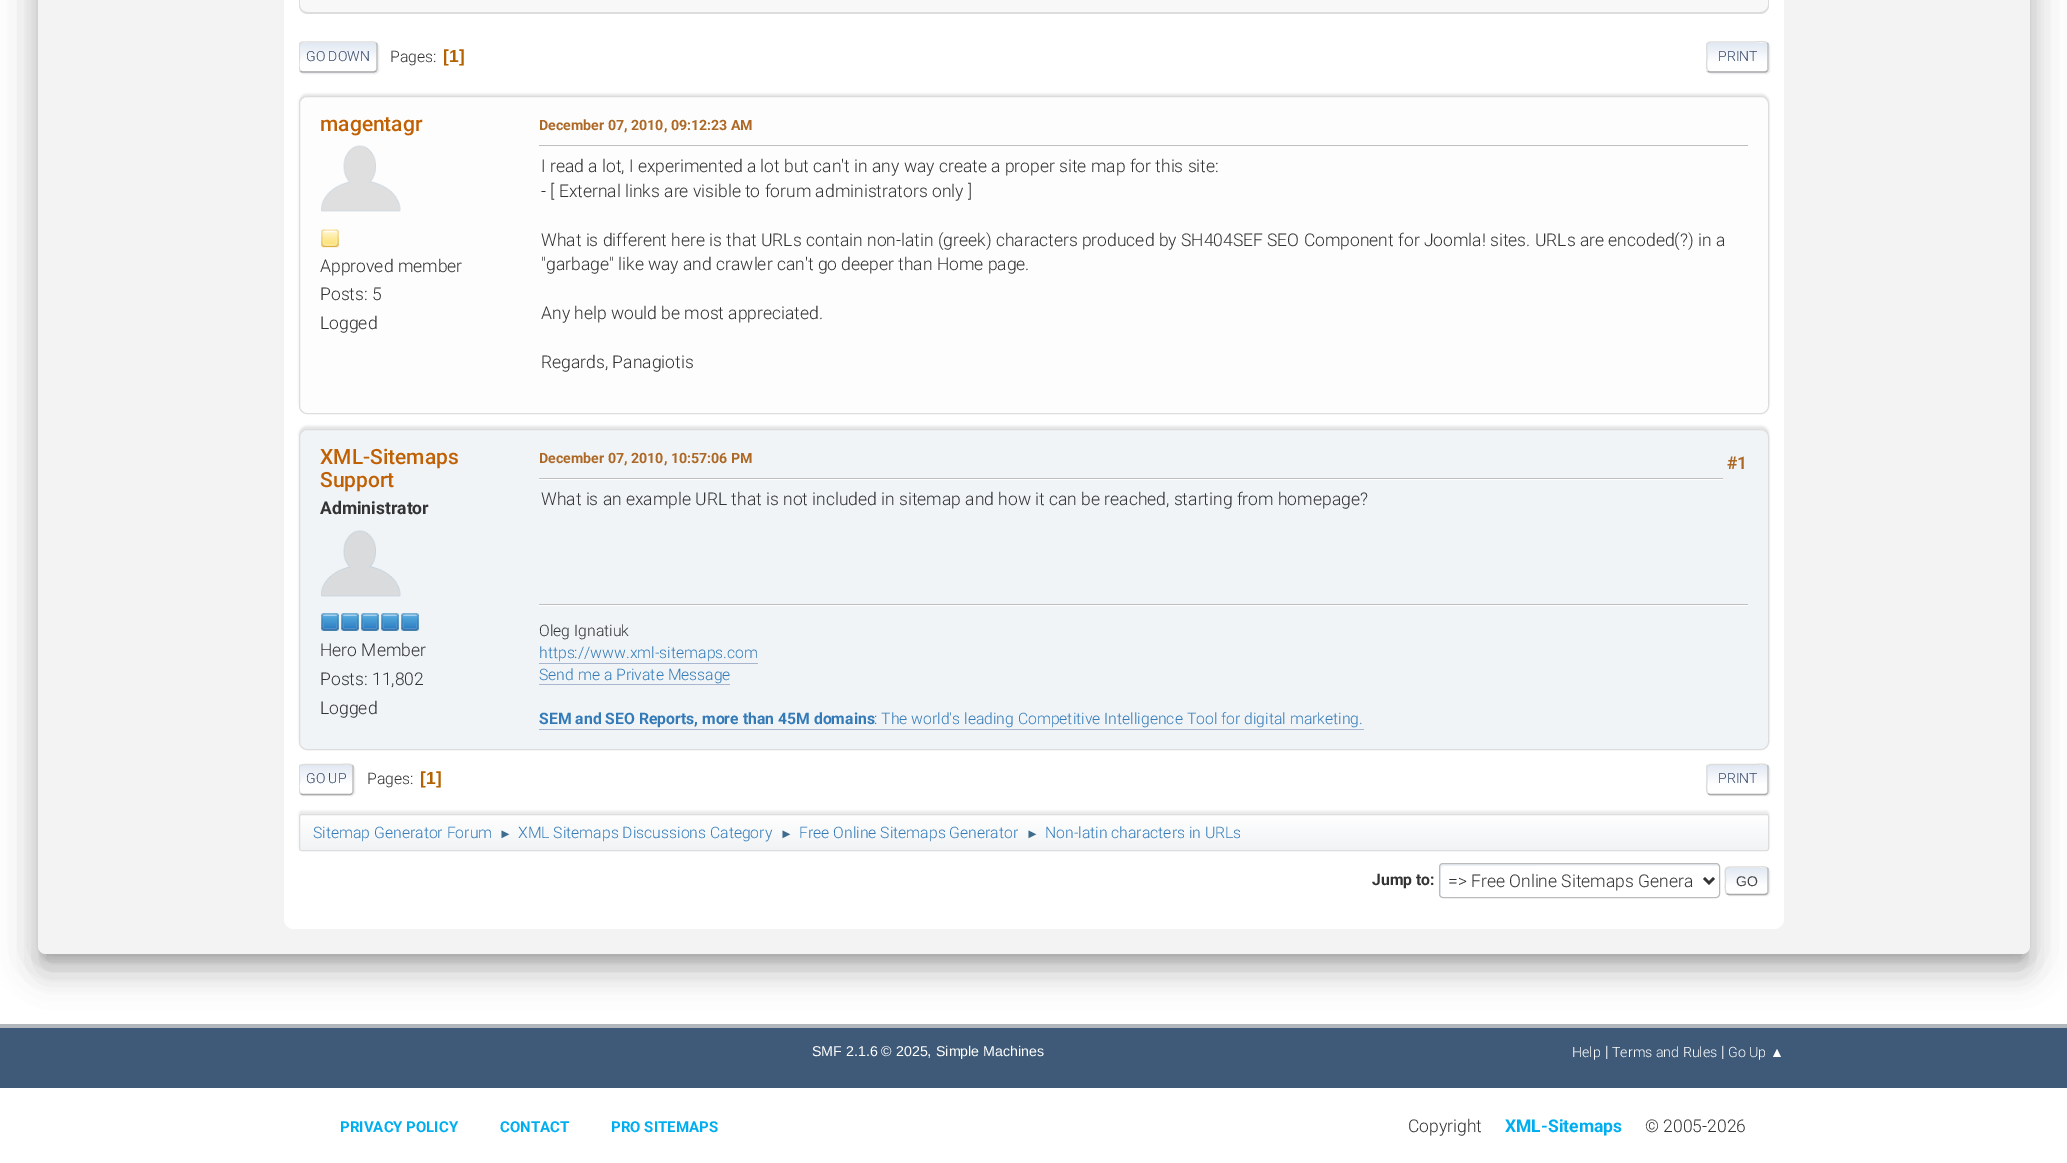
%!PS-Adobe-3.0
%%BoundingBox: 0 0 2067 1163
%%LanguageLevel: 3
%%Pages: 1
%%EndComments
%%BeginProlog
/setalpha { dup .setfillconstantalpha .setstrokeconstantalpha } def
/rrect { 5 dict begin { /r /h /w /y /x } { exch def } forall
  x r add y moveto x w add y 2 copy h add r arct x w add y h add x 1 index r arct
  x y h add x y r arct x y 2 copy exch w add exch r arct closepath end } def
/softshadow { 12 dict begin { /a /b /q /h /w /y /x } { exch def } forall gsave /was 0 def
  9 -2 -9 { dup b mul 4 div /e exch def 1 sub .425 mul 2.718 exch exp 1 add a .99 .min exch div /now exch def
    1 1 now sub 1 was sub div sub setalpha /was now def
    w h .min e 2 mul add 0 gt { x e sub y e sub w e 2 mul add h e 2 mul add
      q e add b .6 mul add w h .min 2 div e add .min 0 .max rrect fill } if } for grestore end } def
/drawimage { 5 dict begin { /h /w /y /x /name } { exch def } forall
  gsave x y translate w h scale
  w h 8 [w 0 0 h 0 0] name (r) file false 3 colorimage grestore end } def
%%EndProlog
%%BeginSetup
<< /PageSize [2067 1163] /PageUsesTransparency true >> setpagedevice
%%EndSetup
%%Page: 1 1
0 .pushpdf14devicefilter
0 1163 translate 1 -1 scale
4 setmiterlimit
1 setgray
0 0 2067 1163 rectfill
0 setgray
44 -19 1980 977 1 6 0.2 softshadow
0.698 0.714 0.741 setrgbcolor
0 1024 2067 4 rectfill
0 setgray
31 -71 2005 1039 14 19 0.12 softshadow
35 -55 1998 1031 10 15 0.14 softshadow
0.953 setgray
38 -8 1992 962 8 rrect fill
1 setgray
284 -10 1500 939 10 rrect fill
0.973 setgray
newpath 299 -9 moveto 1769 -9 lineto 1769 5 lineto 1769 10 1765 14 1760 14 curveto 308 14 lineto 303 14 299 10 299 5 curveto closepath fill
0.867 setgray
newpath 299 -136 moveto 1769 -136 lineto 1769 5 lineto 1769 10 1765 14 1760 14 curveto 308 14 lineto 303 14 299 10 299 5 curveto closepath 300 -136 moveto 1768 -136 lineto 1768 5 lineto 1768 9 1764 12 1760 12 curveto 308 12 lineto 303 12 300 9 300 5 curveto closepath eofill
300 43 79 31 4 0.5 0.57 softshadow
1 setgray
299 41 79 32 4 rrect fill
gsave
299 41 79 32 4 rrect clip newpath
gsave newpath 299 43 moveto 378 43 lineto 378 71 lineto 299 71 lineto closepath clip newpath
<< /ShadingType 2 /ColorSpace /DeviceRGB /Coords [338 43 338 71] /Extend [true true] /Function << /FunctionType 3 /Domain [0 1] /Functions [<< /FunctionType 2 /Domain [0 1] /C0 [0.886 0.914 0.953] /C1 [1 1 1] /N 1 >> << /FunctionType 2 /Domain [0 1] /C0 [1 1 1] /C1 [1 1 1] /N 1 >>] /Bounds [0.7] /Encode [0 1 0 1] >> >> shfill grestore
gsave newpath 299 71 moveto 378 71 lineto 378 73 lineto 299 73 lineto closepath clip newpath
<< /ShadingType 2 /ColorSpace /DeviceRGB /Coords [338 71 338 100] /Extend [true true] /Function << /FunctionType 3 /Domain [0 1] /Functions [<< /FunctionType 2 /Domain [0 1] /C0 [0.886 0.914 0.953] /C1 [1 1 1] /N 1 >> << /FunctionType 2 /Domain [0 1] /C0 [1 1 1] /C1 [1 1 1] /N 1 >>] /Bounds [0.7] /Encode [0 1 0 1] >> >> shfill grestore
grestore
0.733 setgray
1.2 setlinewidth
newpath 376 43 moveto 376.5 43.5 377 44 377 45 curveto 377 69 lineto 377 69.5 376.5 70.5 376 71 curveto stroke
0.667 setgray
newpath 376 71 moveto 374 72 lineto 302 72 lineto 300.5 71 lineto stroke
gsave
299 33 1470 48 rectclip
0.867 setgray
newpath 300.5 71 moveto 298 69 299.5 59.5 299.5 57 curveto 299.5 39.5 296.5 42 314.5 42 curveto 374 42 lineto 376 43 lineto stroke
grestore
0.867 setgray
1708 43 62 31 4 0.5 0.57 softshadow
1 setgray
1706 41 63 32 4 rrect fill
gsave
1706 41 63 32 4 rrect clip newpath
gsave newpath 1706 43 moveto 1769 43 lineto 1769 71 lineto 1706 71 lineto closepath clip newpath
<< /ShadingType 2 /ColorSpace /DeviceRGB /Coords [1738 43 1738 71] /Extend [true true] /Function << /FunctionType 3 /Domain [0 1] /Functions [<< /FunctionType 2 /Domain [0 1] /C0 [0.886 0.914 0.953] /C1 [1 1 1] /N 1 >> << /FunctionType 2 /Domain [0 1] /C0 [1 1 1] /C1 [1 1 1] /N 1 >>] /Bounds [0.7] /Encode [0 1 0 1] >> >> shfill grestore
gsave newpath 1706 71 moveto 1769 71 lineto 1769 73 lineto 1706 73 lineto closepath clip newpath
<< /ShadingType 2 /ColorSpace /DeviceRGB /Coords [1738 71 1738 100] /Extend [true true] /Function << /FunctionType 3 /Domain [0 1] /Functions [<< /FunctionType 2 /Domain [0 1] /C0 [0.886 0.914 0.953] /C1 [1 1 1] /N 1 >> << /FunctionType 2 /Domain [0 1] /C0 [1 1 1] /C1 [1 1 1] /N 1 >>] /Bounds [0.7] /Encode [0 1 0 1] >> >> shfill grestore
grestore
0.733 setgray
newpath 1767 43 moveto 1768 43.5 1768 44 1768 45 curveto 1768 69 lineto 1768 69.5 1768 70.5 1767 71 curveto stroke
0.667 setgray
newpath 1767 71 moveto 1765.5 72 lineto 1709.5 72 lineto 1708 71 lineto stroke
0.867 setgray
newpath 1708 71 moveto 1705.5 69 1707 59.5 1707 57 curveto 1707 41 1704 42 1719 42 curveto 1756 42 lineto 1757 42 1765 40.5 1767 43 curveto stroke
0 setgray
299 94 1470 317 8 1 0.1 softshadow
0.992 setgray
299.5 96.5 1469 317 7.5 rrect gsave fill grestore
0.867 setgray
1 setlinewidth
stroke
(images/1.raw) 321 145 80 67 drawimage
(images/2.raw) 321 229 18 19 drawimage
0.749 setgray
539 145 1209 1 rectfill
0 setgray
299 426 1470 322 8 1 0.1 softshadow
0.941 0.957 0.969 setrgbcolor
299.5 429.5 1469 320 7.5 rrect gsave fill grestore
0.867 setgray
stroke
(images/3.raw) 321 530 80 67 drawimage
(images/4.raw) 321 613 18 18 drawimage
(images/4.raw) 341 613 18 18 drawimage
(images/4.raw) 361 613 18 18 drawimage
(images/4.raw) 381 613 18 18 drawimage
(images/4.raw) 401 613 18 18 drawimage
1 setgray
539 479 1184 1 rectfill
0.749 setgray
539 478 1184 1 rectfill
1 setgray
539 605 1209 1 rectfill
0.749 setgray
539 604 1209 1 rectfill
0.659 0.714 0.812 setrgbcolor
539 663 219 1 rectfill
539 684 191 1 rectfill
539 729 825 1 rectfill
0.867 setgray
300 765 55 31 4 0.5 0.57 softshadow
1 setgray
299 764 55 31 4 rrect fill
gsave
299 764 55 31 4 rrect clip newpath
gsave newpath 299 765 moveto 354 765 lineto 354 794 lineto 299 794 lineto closepath clip newpath
<< /ShadingType 2 /ColorSpace /DeviceRGB /Coords [326 765 326 794] /Extend [true true] /Function << /FunctionType 3 /Domain [0 1] /Functions [<< /FunctionType 2 /Domain [0 1] /C0 [0.886 0.914 0.953] /C1 [1 1 1] /N 1 >> << /FunctionType 2 /Domain [0 1] /C0 [1 1 1] /C1 [1 1 1] /N 1 >>] /Bounds [0.7] /Encode [0 1 0 1] >> >> shfill grestore
grestore
0.733 setgray
1.2 setlinewidth
newpath 352 765.5 moveto 353 766 353 766.5 353 767.5 curveto 353 791 lineto 353 792 353 793 352 793.5 curveto stroke
0.667 setgray
newpath 352 793.5 moveto 350.5 794.5 lineto 302 794.5 lineto 300.5 793.5 lineto stroke
gsave
299 755 1470 49 rectclip
0.867 setgray
newpath 300.5 793.5 moveto 298 791.5 299.5 782 299.5 779.5 curveto 299.5 764 296 764.5 310.5 764.5 curveto 342 764.5 lineto 342.5 764.5 350 763 352 765.5 curveto stroke
grestore
gsave
newpath 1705 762 moveto 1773 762 lineto 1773 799 lineto 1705 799 lineto closepath 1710 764 moveto 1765 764 lineto 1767 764 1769 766 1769 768 curveto 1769 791 lineto 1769 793 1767 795 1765 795 curveto 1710 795 lineto 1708 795 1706 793 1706 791 curveto 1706 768 lineto 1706 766 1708 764 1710 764 curveto closepath eoclip newpath
0.867 setgray
1708 765 62 31 4 0.5 0.57 softshadow
grestore
1 setgray
1706 764 63 31 4 rrect fill
gsave
1706 764 63 31 4 rrect clip newpath
gsave newpath 1706 765 moveto 1769 765 lineto 1769 794 lineto 1706 794 lineto closepath clip newpath
<< /ShadingType 2 /ColorSpace /DeviceRGB /Coords [1738 765 1738 794] /Extend [true true] /Function << /FunctionType 3 /Domain [0 1] /Functions [<< /FunctionType 2 /Domain [0 1] /C0 [0.886 0.914 0.953] /C1 [1 1 1] /N 1 >> << /FunctionType 2 /Domain [0 1] /C0 [1 1 1] /C1 [1 1 1] /N 1 >>] /Bounds [0.7] /Encode [0 1 0 1] >> >> shfill grestore
grestore
0.733 setgray
newpath 1767 765.5 moveto 1768 766 1768 766.5 1768 767.5 curveto 1768 791 lineto 1768 792 1768 793 1767 793.5 curveto stroke
0.667 setgray
newpath 1767 793.5 moveto 1765.5 794.5 lineto 1709.5 794.5 lineto 1708 793.5 lineto stroke
0.867 setgray
newpath 1708 793.5 moveto 1705.5 791.5 1707 782 1707 779.5 curveto 1707 763.5 1704 764.5 1719 764.5 curveto 1756 764.5 lineto 1757 764.5 1765 763 1767 765.5 curveto stroke
0 setgray
299 811 1470 38 2.5 1 0.08 softshadow
gsave
299 814 1470 37 2.5 rrect clip newpath
gsave newpath 299 815 moveto 1769 815 lineto 1769 850 lineto 299 850 lineto closepath clip newpath
<< /ShadingType 2 /ColorSpace /DeviceRGB /Coords [1034 815 1034 850] /Extend [true true] /Function << /FunctionType 3 /Domain [0 1] /Functions [<< /FunctionType 2 /Domain [0 1] /C0 [1 1 1] /C1 [0.945 0.953 0.961] /N 1 >> << /FunctionType 2 /Domain [0 1] /C0 [0.945 0.953 0.961] /C1 [0.945 0.953 0.961] /N 1 >>] /Bounds [0.95] /Encode [0 1 0 1] >> >> shfill grestore
grestore
0.867 setgray
1 setlinewidth
299.5 814.5 1469 36 2 rrect stroke
0.925 0.945 0.973 setrgbcolor
newpath 1444 866 moveto 1469 866 1718 865 1719 866 curveto 1719 865 1718 864 1716 864 curveto 1442 864 lineto 1441 864 1440 865 1440 866 curveto 1440 894 lineto 1440 894 1440 895 1441 896 curveto 1441 869 lineto 1441 867 1442 866 1444 866 curveto closepath fill
0.733 setgray
1439.5 863.5 280 34 3.5 rrect stroke
0.2 setgray
2.5 setlinewidth
newpath 1704 878 moveto 1709 883 lineto 1714 878 lineto stroke
0.867 setgray
1726 868 44 28 4 0.5 0.57 softshadow
1 setgray
1725 866 44 29 4 rrect fill
gsave
1725 866 44 29 4 rrect clip newpath
gsave newpath 1725 868 moveto 1769 868 lineto 1769 894 lineto 1725 894 lineto closepath clip newpath
<< /ShadingType 2 /ColorSpace /DeviceRGB /Coords [1747 868 1747 894] /Extend [true true] /Function << /FunctionType 3 /Domain [0 1] /Functions [<< /FunctionType 2 /Domain [0 1] /C0 [0.886 0.914 0.953] /C1 [1 1 1] /N 1 >> << /FunctionType 2 /Domain [0 1] /C0 [1 1 1] /C1 [1 1 1] /N 1 >>] /Bounds [0.7] /Encode [0 1 0 1] >> >> shfill grestore
gsave newpath 1725 894 moveto 1769 894 lineto 1769 895 lineto 1725 895 lineto closepath clip newpath
<< /ShadingType 2 /ColorSpace /DeviceRGB /Coords [1747 894 1747 920] /Extend [true true] /Function << /FunctionType 3 /Domain [0 1] /Functions [<< /FunctionType 2 /Domain [0 1] /C0 [0.886 0.914 0.953] /C1 [1 1 1] /N 1 >> << /FunctionType 2 /Domain [0 1] /C0 [1 1 1] /C1 [1 1 1] /N 1 >>] /Bounds [0.7] /Encode [0 1 0 1] >> >> shfill grestore
grestore
0.733 setgray
1.2 setlinewidth
newpath 1767 868 moveto 1768 868.5 1768 869 1768 870 curveto 1768 891 lineto 1768 892 1768 893 1767 893.5 curveto stroke
0.667 setgray
newpath 1767 893.5 moveto 1765 894.5 lineto 1729 894.5 lineto 1726.5 893.5 lineto stroke
0.867 setgray
newpath 1726.5 893.5 moveto 1724.5 891.5 1725.5 883 1725.5 880.5 curveto 1725.5 868 1722.5 867 1735 867 curveto 1759 867 lineto 1760.5 867 1765.5 866 1767 868 curveto stroke
0.243 0.353 0.471 setrgbcolor
0 1028 2067 60 rectfill
/Roboto-Light [14 0 0 -14 0 0] selectfont
0.2 0.267 0.4 setrgbcolor
306 61 moveto (GO DOWN) show
/Roboto-Light [15.75 0 0 -15.75 0 0] selectfont
0.2 setgray
390 62 moveto (Pages:) show
/LiberationSans-Bold [17.5 0 0 -17.5 0 0] selectfont
0.706 0.38 0 setrgbcolor
443 62 moveto ([1]) show
/Roboto-Light [14 0 0 -14 0 0] selectfont
0.2 0.267 0.4 setrgbcolor
1718 61 moveto (PRINT) show
/Roboto-Medium [21 0 0 -21 0 0] selectfont
0.753 0.376 0.008 setrgbcolor
320 131 moveto (magentagr) show
/Roboto-Light [17.5 0 0 -17.5 0 0] selectfont
0.2 setgray
320 272 moveto (Approved member) show
320 300 moveto (Posts: 5) show
320 329 moveto (Logged) show
/Roboto-Bold [14.2 0 0 -14.2 0 0] selectfont
0.678 0.408 0.145 setrgbcolor
539 130 moveto (December 07, 2010, 09:12:23 AM) show
/Roboto-Light [17.5 0 0 -17.5 0 0] selectfont
0.2 setgray
541 172 moveto (I read a lot, I experimented a lot but can't in any way create a proper site map for this site:) show
541 197 moveto (- [ External links are visible to forum administrators only ]) show
541 246 moveto (What is different here is that URLs contain non-latin \(greek\) characters produced by SH404SEF SEO Component for Joomla! sites. URLs are encoded\(?\) in a) show
541 270 moveto ("garbage" like way and crawler can't go deeper than Home page.) show
541 319 moveto (Any help would be most appreciated.) show
541 368 moveto (Regards, Panagiotis) show
/Roboto-Medium [21 0 0 -21 0 0] selectfont
0.753 0.376 0.008 setrgbcolor
320 464 moveto (XML-Sitemaps) show
320 487 moveto (Support) show
/Roboto-Bold [17.5 0 0 -17.5 0 0] selectfont
0.2 setgray
320 514 moveto (Administrator) show
/Roboto-Light [17.5 0 0 -17.5 0 0] selectfont
320 656 moveto (Hero Member) show
320 685 moveto (Posts: 11,802) show
320 714 moveto (Logged) show
/Roboto-Bold [14.2 0 0 -14.2 0 0] selectfont
0.678 0.408 0.145 setrgbcolor
539 463 moveto (December 07, 2010, 10:57:06 PM) show
/Roboto-Bold [17.5 0 0 -17.5 0 0] selectfont
1727 469 moveto (#1) show
/Roboto-Light [17.5 0 0 -17.5 0 0] selectfont
0.2 setgray
541 505 moveto (What is an example URL that is not included in sitemap and how it can be reached, starting from homepage?) show
/Roboto-Light [15.75 0 0 -15.75 0 0] selectfont
539 636 moveto (Oleg Ignatiuk) show
0.2 0.478 0.718 setrgbcolor
539 658 moveto (https://www.xml-sitemaps.com) show
539 680 moveto (Send me a Private Message) show
/Roboto-Bold [15.75 0 0 -15.75 0 0] selectfont
539 724 moveto (SEM and SEO Reports, more than 45M domains) show
/Roboto-Light [15.75 0 0 -15.75 0 0] selectfont
874 724 moveto (: The world's leading Competitive Intelligence Tool for digital marketing.) show
/Roboto-Light [14 0 0 -14 0 0] selectfont
0.2 0.267 0.4 setrgbcolor
306 783 moveto (GO UP) show
/Roboto-Light [15.75 0 0 -15.75 0 0] selectfont
0.2 setgray
367 784 moveto (Pages:) show
/LiberationSans-Bold [17.5 0 0 -17.5 0 0] selectfont
0.706 0.38 0 setrgbcolor
420 784 moveto ([1]) show
/Roboto-Light [14 0 0 -14 0 0] selectfont
0.2 0.267 0.4 setrgbcolor
1718 783 moveto (PRINT) show
/Roboto-Light [15.75 0 0 -15.75 0 0] selectfont
0.2 0.478 0.718 setrgbcolor
313 838 moveto (Sitemap Generator Forum) show
/LiberationSans-Regular [13 0 0 -13 0 0] selectfont
0.247 0.42 0.549 setrgbcolor
499 838 moveto (►) show
/Roboto-Light [15.75 0 0 -15.75 0 0] selectfont
0.2 0.478 0.718 setrgbcolor
518 838 moveto (XML Sitemaps Discussions Category) show
/LiberationSans-Regular [13 0 0 -13 0 0] selectfont
0.247 0.42 0.549 setrgbcolor
780 838 moveto (►) show
/Roboto-Light [15.75 0 0 -15.75 0 0] selectfont
0.2 0.478 0.718 setrgbcolor
799 838 moveto (Free Online Sitemaps Generator) show
/LiberationSans-Regular [13 0 0 -13 0 0] selectfont
0.247 0.42 0.549 setrgbcolor
1026 838 moveto (►) show
/Roboto-Light [15.75 0 0 -15.75 0 0] selectfont
0.2 0.478 0.718 setrgbcolor
1045 838 moveto (Non-latin characters in URLs) show
/Roboto-Bold [15.75 0 0 -15.75 0 0] selectfont
0.2 setgray
1372 885 moveto (Jump to:) show
/Roboto-Light [17.5 0 0 -17.5 0 0] selectfont
1448 887 moveto (=> Free Online Sitemaps Genera) show
/LiberationSans-Regular [14 0 0 -14 0 0] selectfont
0.267 setgray
1736 886 moveto (GO) show
/LiberationSans-Regular [14.2 0 0 -14.2 0 0] selectfont
1 setgray
812 1056 moveto (SMF 2.1.6 © 2025) show
/LiberationSans-Regular [15.75 0 0 -15.75 0 0] selectfont
927 1056 moveto (,) show
/LiberationSans-Regular [14.2 0 0 -14.2 0 0] selectfont
936 1056 moveto (Simple Machines) show
/Roboto-Light [14.2 0 0 -14.2 0 0] selectfont
1572 1057 moveto (Help) show
/Roboto-Light [15.75 0 0 -15.75 0 0] selectfont
1605 1057 moveto (|) show
/Roboto-Light [14.2 0 0 -14.2 0 0] selectfont
1612 1057 moveto (Terms and Rules) show
/Roboto-Light [15.75 0 0 -15.75 0 0] selectfont
1721 1057 moveto (|) show
/Roboto-Light [14.2 0 0 -14.2 0 0] selectfont
1728 1057 moveto (Go Up) show
/LiberationSans-Regular [14.2 0 0 -14.2 0 0] selectfont
1770 1057 moveto (▲) show
/Roboto-Bold [15 0 0 -15 0 0] selectfont
0 0.682 0.937 setrgbcolor
340 1132 moveto (PRIVACY POLICY) show
500 1132 moveto (CONTACT) show
611 1132 moveto (PRO SITEMAPS) show
/Roboto-Light [17.5 0 0 -17.5 0 0] selectfont
0.2 setgray
1408 1132 moveto (Copyright) show
/Roboto-Bold [17.5 0 0 -17.5 0 0] selectfont
0 0.682 0.937 setrgbcolor
1505 1132 moveto (XML-Sitemaps) show
/Roboto-Light [17.5 0 0 -17.5 0 0] selectfont
0.2 setgray
1645 1132 moveto (© 2005-2026) show
.poppdf14devicefilter showpage
%%EOF
